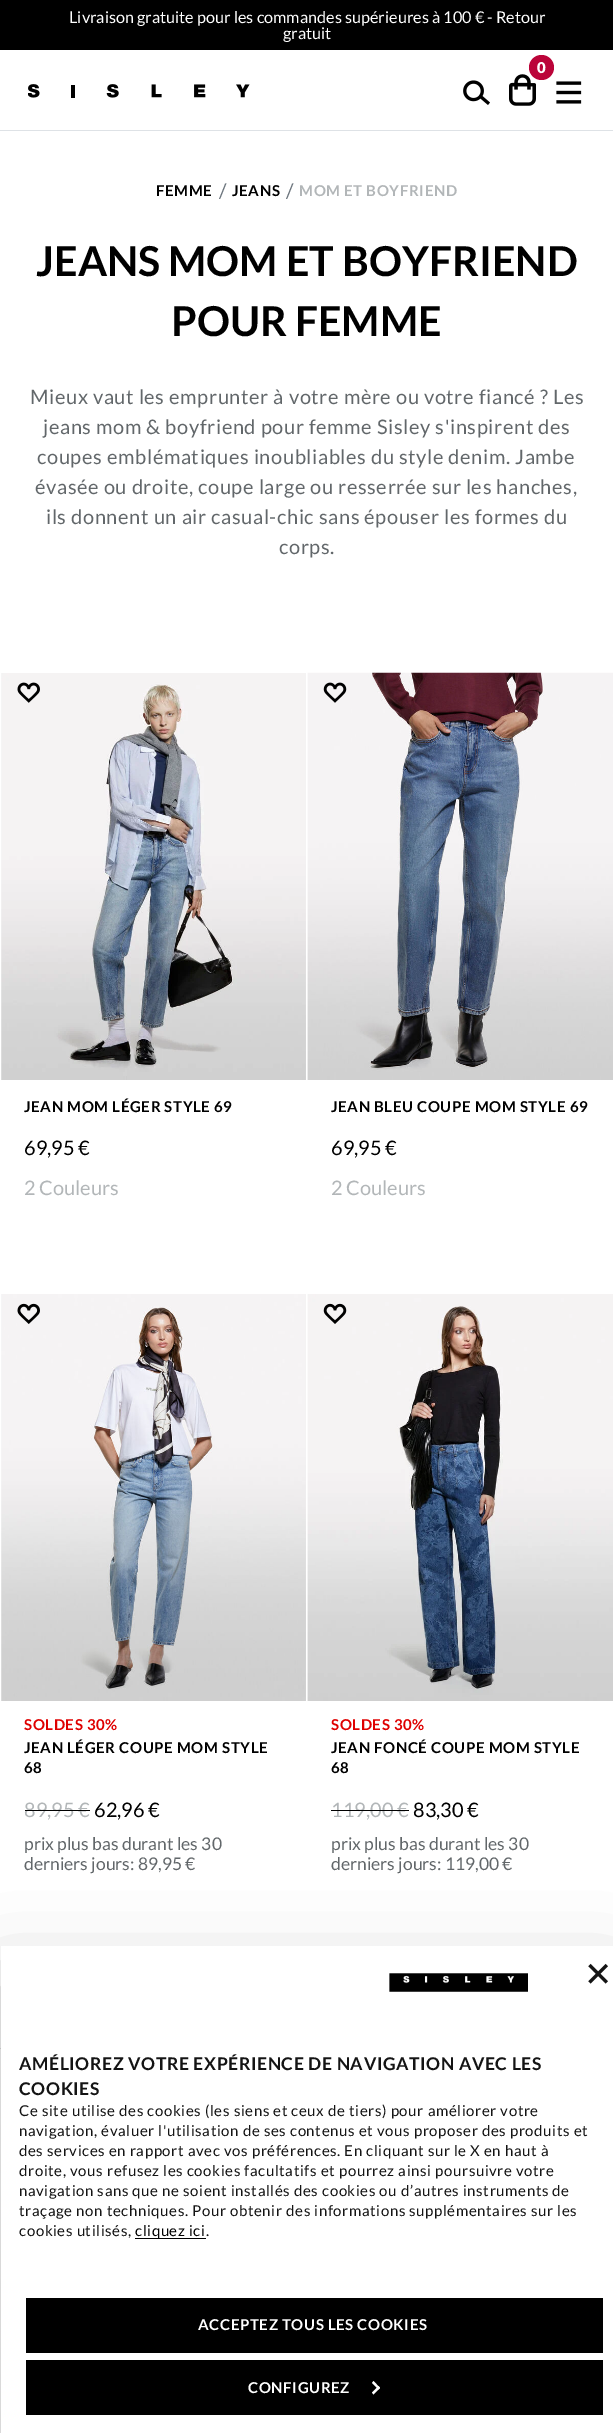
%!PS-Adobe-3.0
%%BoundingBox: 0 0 613 2433
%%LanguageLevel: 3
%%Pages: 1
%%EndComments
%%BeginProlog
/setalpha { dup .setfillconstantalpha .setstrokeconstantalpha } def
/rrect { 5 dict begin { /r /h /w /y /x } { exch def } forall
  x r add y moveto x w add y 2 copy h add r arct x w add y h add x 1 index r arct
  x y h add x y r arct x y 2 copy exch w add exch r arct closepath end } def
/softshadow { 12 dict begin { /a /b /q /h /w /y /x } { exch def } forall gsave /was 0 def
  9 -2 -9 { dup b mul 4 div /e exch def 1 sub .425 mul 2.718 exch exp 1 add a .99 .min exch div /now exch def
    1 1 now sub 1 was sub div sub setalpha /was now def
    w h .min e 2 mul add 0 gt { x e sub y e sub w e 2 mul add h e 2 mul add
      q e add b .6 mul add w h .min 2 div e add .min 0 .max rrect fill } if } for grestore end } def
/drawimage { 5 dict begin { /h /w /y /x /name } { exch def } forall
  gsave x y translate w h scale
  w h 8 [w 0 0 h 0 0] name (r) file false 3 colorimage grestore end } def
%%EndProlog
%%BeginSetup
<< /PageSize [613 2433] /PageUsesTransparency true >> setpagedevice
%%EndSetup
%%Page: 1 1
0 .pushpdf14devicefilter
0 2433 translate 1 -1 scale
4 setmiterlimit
1 setgray
0 0 613 2433 rectfill
0.871 0.886 0.902 setrgbcolor
0 130 613 1 rectfill
0 setgray
0 0 613 50 rectfill
(images/1.raw) 509 74 27 32 drawimage
0.733 0.016 0.224 setrgbcolor
newpath 541.5 67.5 12.5 0 360 arc closepath fill
(images/2.raw) 463 80 27 25 drawimage
(images/3.raw) 556 81 26 23 drawimage
(images/4.raw) 28 84 222 14 drawimage
(images/5.raw) 1 673 305 407 drawimage
(images/6.raw) 17 682 23 21 drawimage
(images/7.raw) 307 672 306 408 drawimage
(images/8.raw) 323 682 24 21 drawimage
(images/9.raw) 1 1294 305 407 drawimage
(images/10.raw) 17 1303 23 21 drawimage
(images/11.raw) 307 1294 306 407 drawimage
(images/12.raw) 323 1303 24 21 drawimage
0.871 0.886 0.902 setrgbcolor
0 2048 1 1 rectfill
0 setgray
1 1986 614 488 0 42.5 0.3 softshadow
1 setgray
1 1946 612 487 rectfill
(images/13.raw) 389 1973 139 19 drawimage
(images/14.raw) 588 1963 20 21 drawimage
0 setgray
135 2238 71 1 rectfill
26 2298 577 55 rectfill
26 2360 577 55 rectfill
1 setgray
newpath 373.5 2381 moveto 380 2388 lineto 378.5 2389.5 lineto 372 2383 lineto closepath fill
newpath 378.5 2386 moveto 380 2388 lineto 373.5 2394.5 lineto 372 2392.5 lineto closepath fill
/Lato-Regular [16.25 0 0 -16.25 0 0] selectfont
69 23 moveto (Livraison gratuite pour les commandes supérieures à 100 € - Retour) show
283 39 moveto (gratuit) show
/Lato-Black [15 0 0 -15 0 0] selectfont
537 73 moveto 0.62 0 (0) ashow
/Lato-Bold [15 0 0 -15 0 0] selectfont
0 setgray
156 196 moveto 0.62 0 (FEMME) ashow
/Lato-Regular [20 0 0 -20 0 0] selectfont
0.424 0.459 0.49 setrgbcolor
219 198 moveto 0.62 0 (/) ashow
/Lato-Bold [15 0 0 -15 0 0] selectfont
0 setgray
232 196 moveto 0.62 0 (JEANS) ashow
/Lato-Regular [20 0 0 -20 0 0] selectfont
0.424 0.459 0.49 setrgbcolor
286 198 moveto 0.62 0 (/) ashow
/Lato-Bold [15 0 0 -15 0 0] selectfont
0.698 0.714 0.722 setrgbcolor
299 196 moveto 0.62 0 (MOM ET BOYFRIEND) ashow
/Lato-Bold [41.25 0 0 -41.25 0 0] selectfont
0 setgray
36 276 moveto (JEANS MOM ET BOYFRIEND) show
171 336 moveto (POUR FEMME) show
/Lato-Regular [20 0 0 -20 0 0] selectfont
0.384 0.404 0.416 setrgbcolor
30 404 moveto 0.62 0 (Mieux vaut les emprunter à votre mère ou votre fiancé ? Les) ashow
43 434 moveto 0.62 0 (jeans mom & boyfriend pour femme Sisley s'inspirent des) ashow
37 464 moveto 0.62 0 (coupes emblématiques inoubliables du style denim. Jambe) ashow
35 494 moveto 0.62 0 (évasée ou droite, coupe large ou resserrée sur les hanches,) ashow
46 524 moveto 0.62 0 (ils donnent un air casual-chic sans épouser les formes du) ashow
279 554 moveto 0.62 0 (corps.) ashow
/Lato-Bold [15 0 0 -15 0 0] selectfont
0 setgray
24 1112 moveto 0.62 0 (JEAN MOM LÉGER STYLE 69) ashow
/Lato-Regular [20 0 0 -20 0 0] selectfont
24 1155 moveto (69,95 €) show
0.698 0.714 0.722 setrgbcolor
24 1195 moveto (2 Couleurs) show
/Lato-Bold [15 0 0 -15 0 0] selectfont
0 setgray
331 1112 moveto 0.62 0 (JEAN BLEU COUPE MOM STYLE 69) ashow
/Lato-Regular [20 0 0 -20 0 0] selectfont
331 1155 moveto (69,95 €) show
0.698 0.714 0.722 setrgbcolor
331 1195 moveto (2 Couleurs) show
/Lato-Bold [15 0 0 -15 0 0] selectfont
0.875 0 0 setrgbcolor
24 1730 moveto 0.62 0 (SOLDES 30%) ashow
0 setgray
24 1753 moveto 0.62 0 (JEAN LÉGER COUPE MOM STYLE) ashow
24 1773 moveto 0.62 0 (68) ashow
/Lato-Regular [20 0 0 -20 0 0] selectfont
0.698 0.714 0.722 setrgbcolor
24 1817 moveto (89,95 €) show
0 setgray
25 1810 65 1 rectfill
94 1817 moveto (62,96 €) show
/Lato-Regular [17.5 0 0 -17.5 0 0] selectfont
0.384 0.404 0.416 setrgbcolor
24 1850 moveto (prix plus bas durant les 30) show
24 1870 moveto (derniers jours: 89,95 €) show
/Lato-Bold [15 0 0 -15 0 0] selectfont
0.875 0 0 setrgbcolor
331 1730 moveto 0.62 0 (SOLDES 30%) ashow
0 setgray
331 1753 moveto 0.62 0 (JEAN FONCÉ COUPE MOM STYLE) ashow
331 1773 moveto 0.62 0 (68) ashow
/Lato-Regular [20 0 0 -20 0 0] selectfont
0.698 0.714 0.722 setrgbcolor
331 1817 moveto (119,00 €) show
0 setgray
331 1810 78 1 rectfill
413 1817 moveto (83,30 €) show
/Lato-Regular [17.5 0 0 -17.5 0 0] selectfont
0.384 0.404 0.416 setrgbcolor
331 1850 moveto (prix plus bas durant les 30) show
331 1870 moveto (derniers jours: 119,00 €) show
/Lato-Bold [17.5 0 0 -17.5 0 0] selectfont
0.078 setgray
19 2070 moveto 0.62 0 (AMÉLIOREZ VOTRE EXPÉRIENCE DE NAVIGATION AVEC LES) ashow
19 2095 moveto 0.62 0 (COOKIES) ashow
/Lato-Regular [15 0 0 -15 0 0] selectfont
19 2116 moveto 0.62 0 (Ce site utilise des cookies \(les siens et ceux de tiers\) pour améliorer votre) ashow
19 2136 moveto 0.62 0 (navigation, évaluer l'utilisation de ses contenus et vous proposer des produits et) ashow
19 2156 moveto 0.62 0 (des services en rapport avec vos préférences. En cliquant sur le X en haut à) ashow
19 2176 moveto 0.62 0 (droite, vous refusez les cookies facultatifs et pourrez ainsi poursuivre votre) ashow
19 2196 moveto 0.62 0 (navigation sans que ne soient installés des cookies ou d’autres instruments de) ashow
19 2216 moveto 0.62 0 (traçage non techniques. Pour obtenir des informations supplémentaires sur les) ashow
19 2236 moveto 0.62 0 (cookies utilisés,) ashow
0 setgray
135 2236 moveto 0.62 0 (cliquez ici) ashow
0.078 setgray
206 2236 moveto 0.62 0 (.) ashow
/Lato-Bold [15 0 0 -15 0 0] selectfont
1 setgray
198 2330 moveto 0.62 0 (ACCEPTEZ TOUS LES COOKIES) ashow
248 2393 moveto 0.62 0 (CONFIGUREZ) ashow
.poppdf14devicefilter showpage
%%EOF
